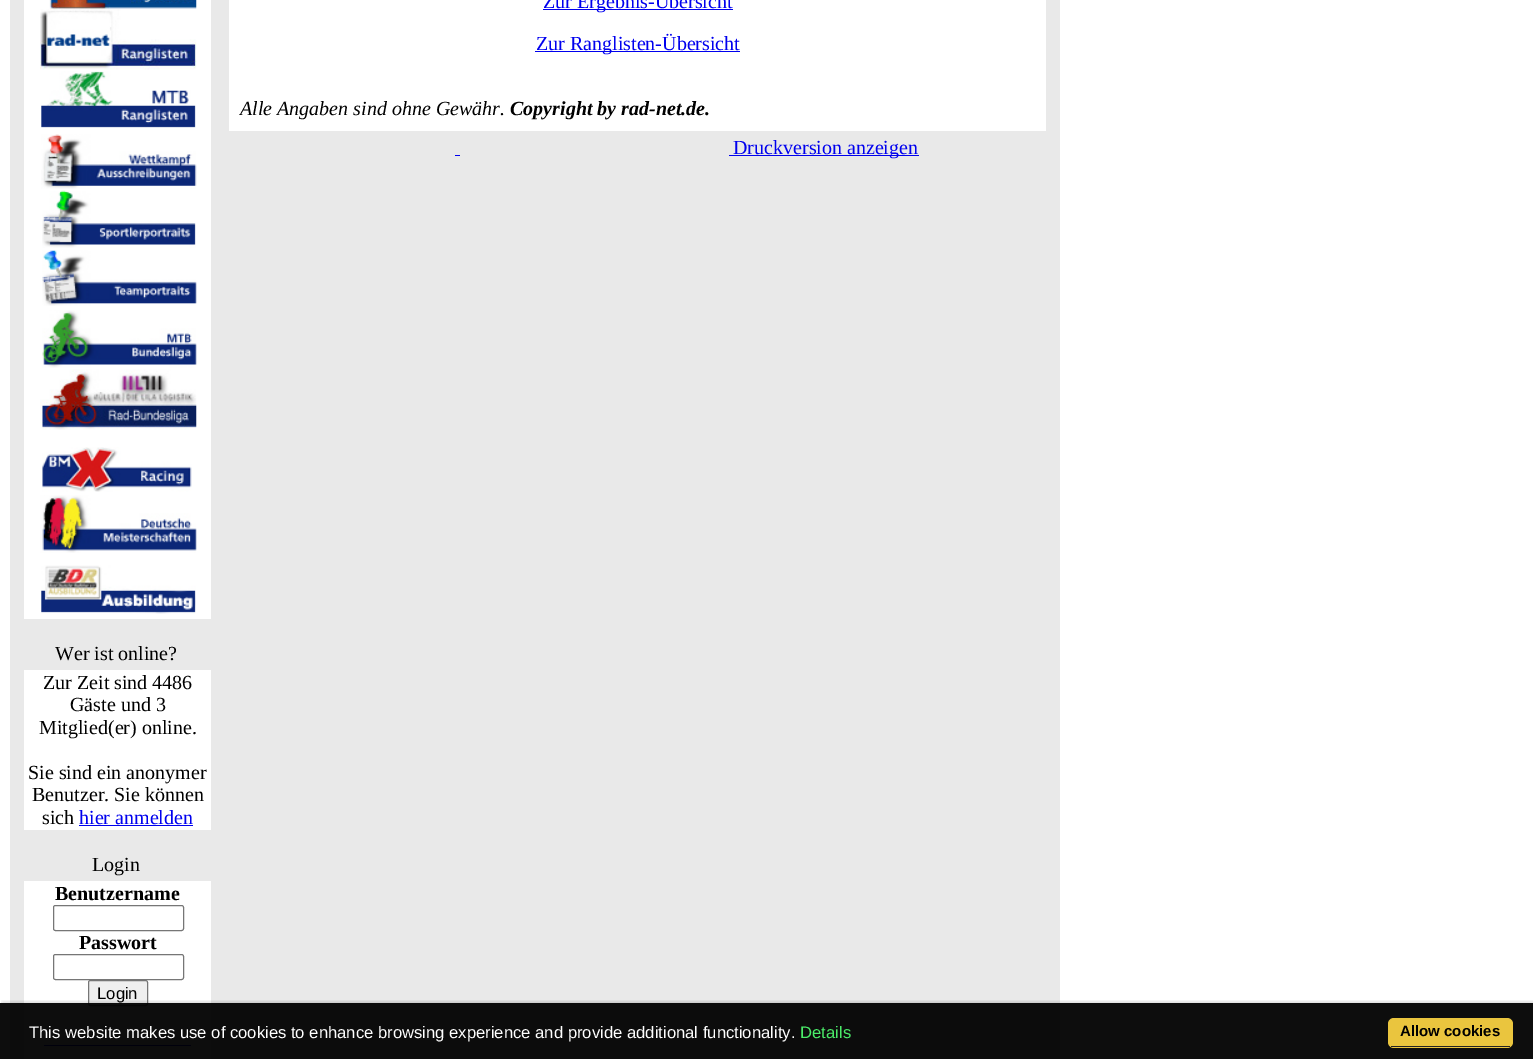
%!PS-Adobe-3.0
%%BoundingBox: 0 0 1533 1059
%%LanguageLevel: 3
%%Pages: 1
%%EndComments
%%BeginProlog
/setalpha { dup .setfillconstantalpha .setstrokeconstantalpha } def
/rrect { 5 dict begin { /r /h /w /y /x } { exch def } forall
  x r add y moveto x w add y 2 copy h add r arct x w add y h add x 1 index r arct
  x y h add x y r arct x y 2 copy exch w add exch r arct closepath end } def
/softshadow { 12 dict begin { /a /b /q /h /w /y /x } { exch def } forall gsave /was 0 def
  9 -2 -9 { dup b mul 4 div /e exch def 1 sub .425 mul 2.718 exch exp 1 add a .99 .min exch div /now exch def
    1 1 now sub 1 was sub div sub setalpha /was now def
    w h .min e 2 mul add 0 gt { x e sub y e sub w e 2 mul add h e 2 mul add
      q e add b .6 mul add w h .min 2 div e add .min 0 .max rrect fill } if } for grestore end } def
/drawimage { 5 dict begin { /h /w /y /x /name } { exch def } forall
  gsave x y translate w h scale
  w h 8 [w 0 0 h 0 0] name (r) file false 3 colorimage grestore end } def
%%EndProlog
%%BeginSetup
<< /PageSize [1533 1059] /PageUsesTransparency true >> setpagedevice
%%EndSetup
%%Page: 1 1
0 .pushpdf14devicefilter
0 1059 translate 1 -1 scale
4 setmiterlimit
1 setgray
0 0 1533 1059 rectfill
0.914 setgray
10 0 1050 1059 rectfill
1 setgray
229 0 817 131 rectfill
0 0 0.933 setrgbcolor
543 9 190 1 rectfill
535 51 205 1 rectfill
455 155 5 1 rectfill
729 155 190 1 rectfill
1 setgray
24 0 187 619 rectfill
(images/1.raw) 49 0 148 10 drawimage
(images/2.raw) 40 9 157 61 drawimage
(images/3.raw) 41 71 155 57 drawimage
(images/4.raw) 41 134 156 55 drawimage
(images/5.raw) 42 190 154 58 drawimage
(images/6.raw) 42 250 155 56 drawimage
(images/7.raw) 42 310 155 58 drawimage
(images/8.raw) 40 369 157 61 drawimage
(images/9.raw) 42 447 150 45 drawimage
(images/10.raw) 40 495 157 58 drawimage
(images/11.raw) 41 565 155 49 drawimage
24 670 187 160 rectfill
0 0 0.933 setrgbcolor
79 825 114 1 rectfill
1 setgray
24 881 187 178 rectfill
0.463 setgray
53.5 905.5 130 25 2 rrect stroke
53.5 954.5 130 25 2 rrect stroke
0.937 setgray
88.5 980.5 59 25 2 rrect gsave fill grestore
0.463 setgray
stroke
0 0 0.933 setrgbcolor
44 1045 147 1 rectfill
gsave
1 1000 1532 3 rectclip
0 setgray
3 1005 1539 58 0 3 0.6 softshadow
grestore
0.95 setalpha
0 setgray
0 1003 1533 56 rectfill
1 setalpha
0.918 0.773 0.243 setrgbcolor
1388 1018 125 30 6 rrect fill
0.133 setgray
1391 1046 119 1 rectfill
/LiberationSerif-Regular [20 0 0 -20 0 0] selectfont
0 0 0.933 setrgbcolor
543 8 moveto (Zur Ergebnis-Übersicht) show
536 50 moveto (Zur Ranglisten-Übersicht) show
/LiberationSerif-Italic [20 0 0 -20 0 0] selectfont
0 setgray
240 115 moveto (Alle Angaben sind ohne Gewähr.) show
/LiberationSerif-BoldItalic [20 0 0 -20 0 0] selectfont
510 115 moveto (Copyright by rad-net.de.) show
/LiberationSerif-Regular [20 0 0 -20 0 0] selectfont
0 0 0.933 setrgbcolor
733 154 moveto (Druckversion anzeigen) show
0 setgray
55 660 moveto (Wer ist online?) show
43 689 moveto (Zur Zeit sind 4486) show
70 711 moveto (Gäste und 3) show
39 734 moveto (Mitglied\(er\) online.) show
28 779 moveto (Sie sind ein anonymer) show
32 801 moveto (Benutzer. Sie können) show
42 824 moveto (sich) show
0 0 0.933 setrgbcolor
79 824 moveto (hier anmelden) show
0 setgray
92 871 moveto (Login) show
/LiberationSerif-Bold [20 0 0 -20 0 0] selectfont
55 900 moveto (Benutzername) show
79 949 moveto (Passwort) show
/LiberationSans-Regular [16.65 0 0 -16.65 0 0] selectfont
97 999 moveto (Login) show
1 setgray
29 1038 moveto (This website makes use of cookies to enhance browsing experience and provide additional functionality.) show
0.294 0.925 0.412 setrgbcolor
800 1038 moveto (Details) show
/LiberationSans-Bold [15 0 0 -15 0 0] selectfont
0 setgray
1400 1036 moveto (Allow cookies) show
.poppdf14devicefilter showpage
%%EOF
